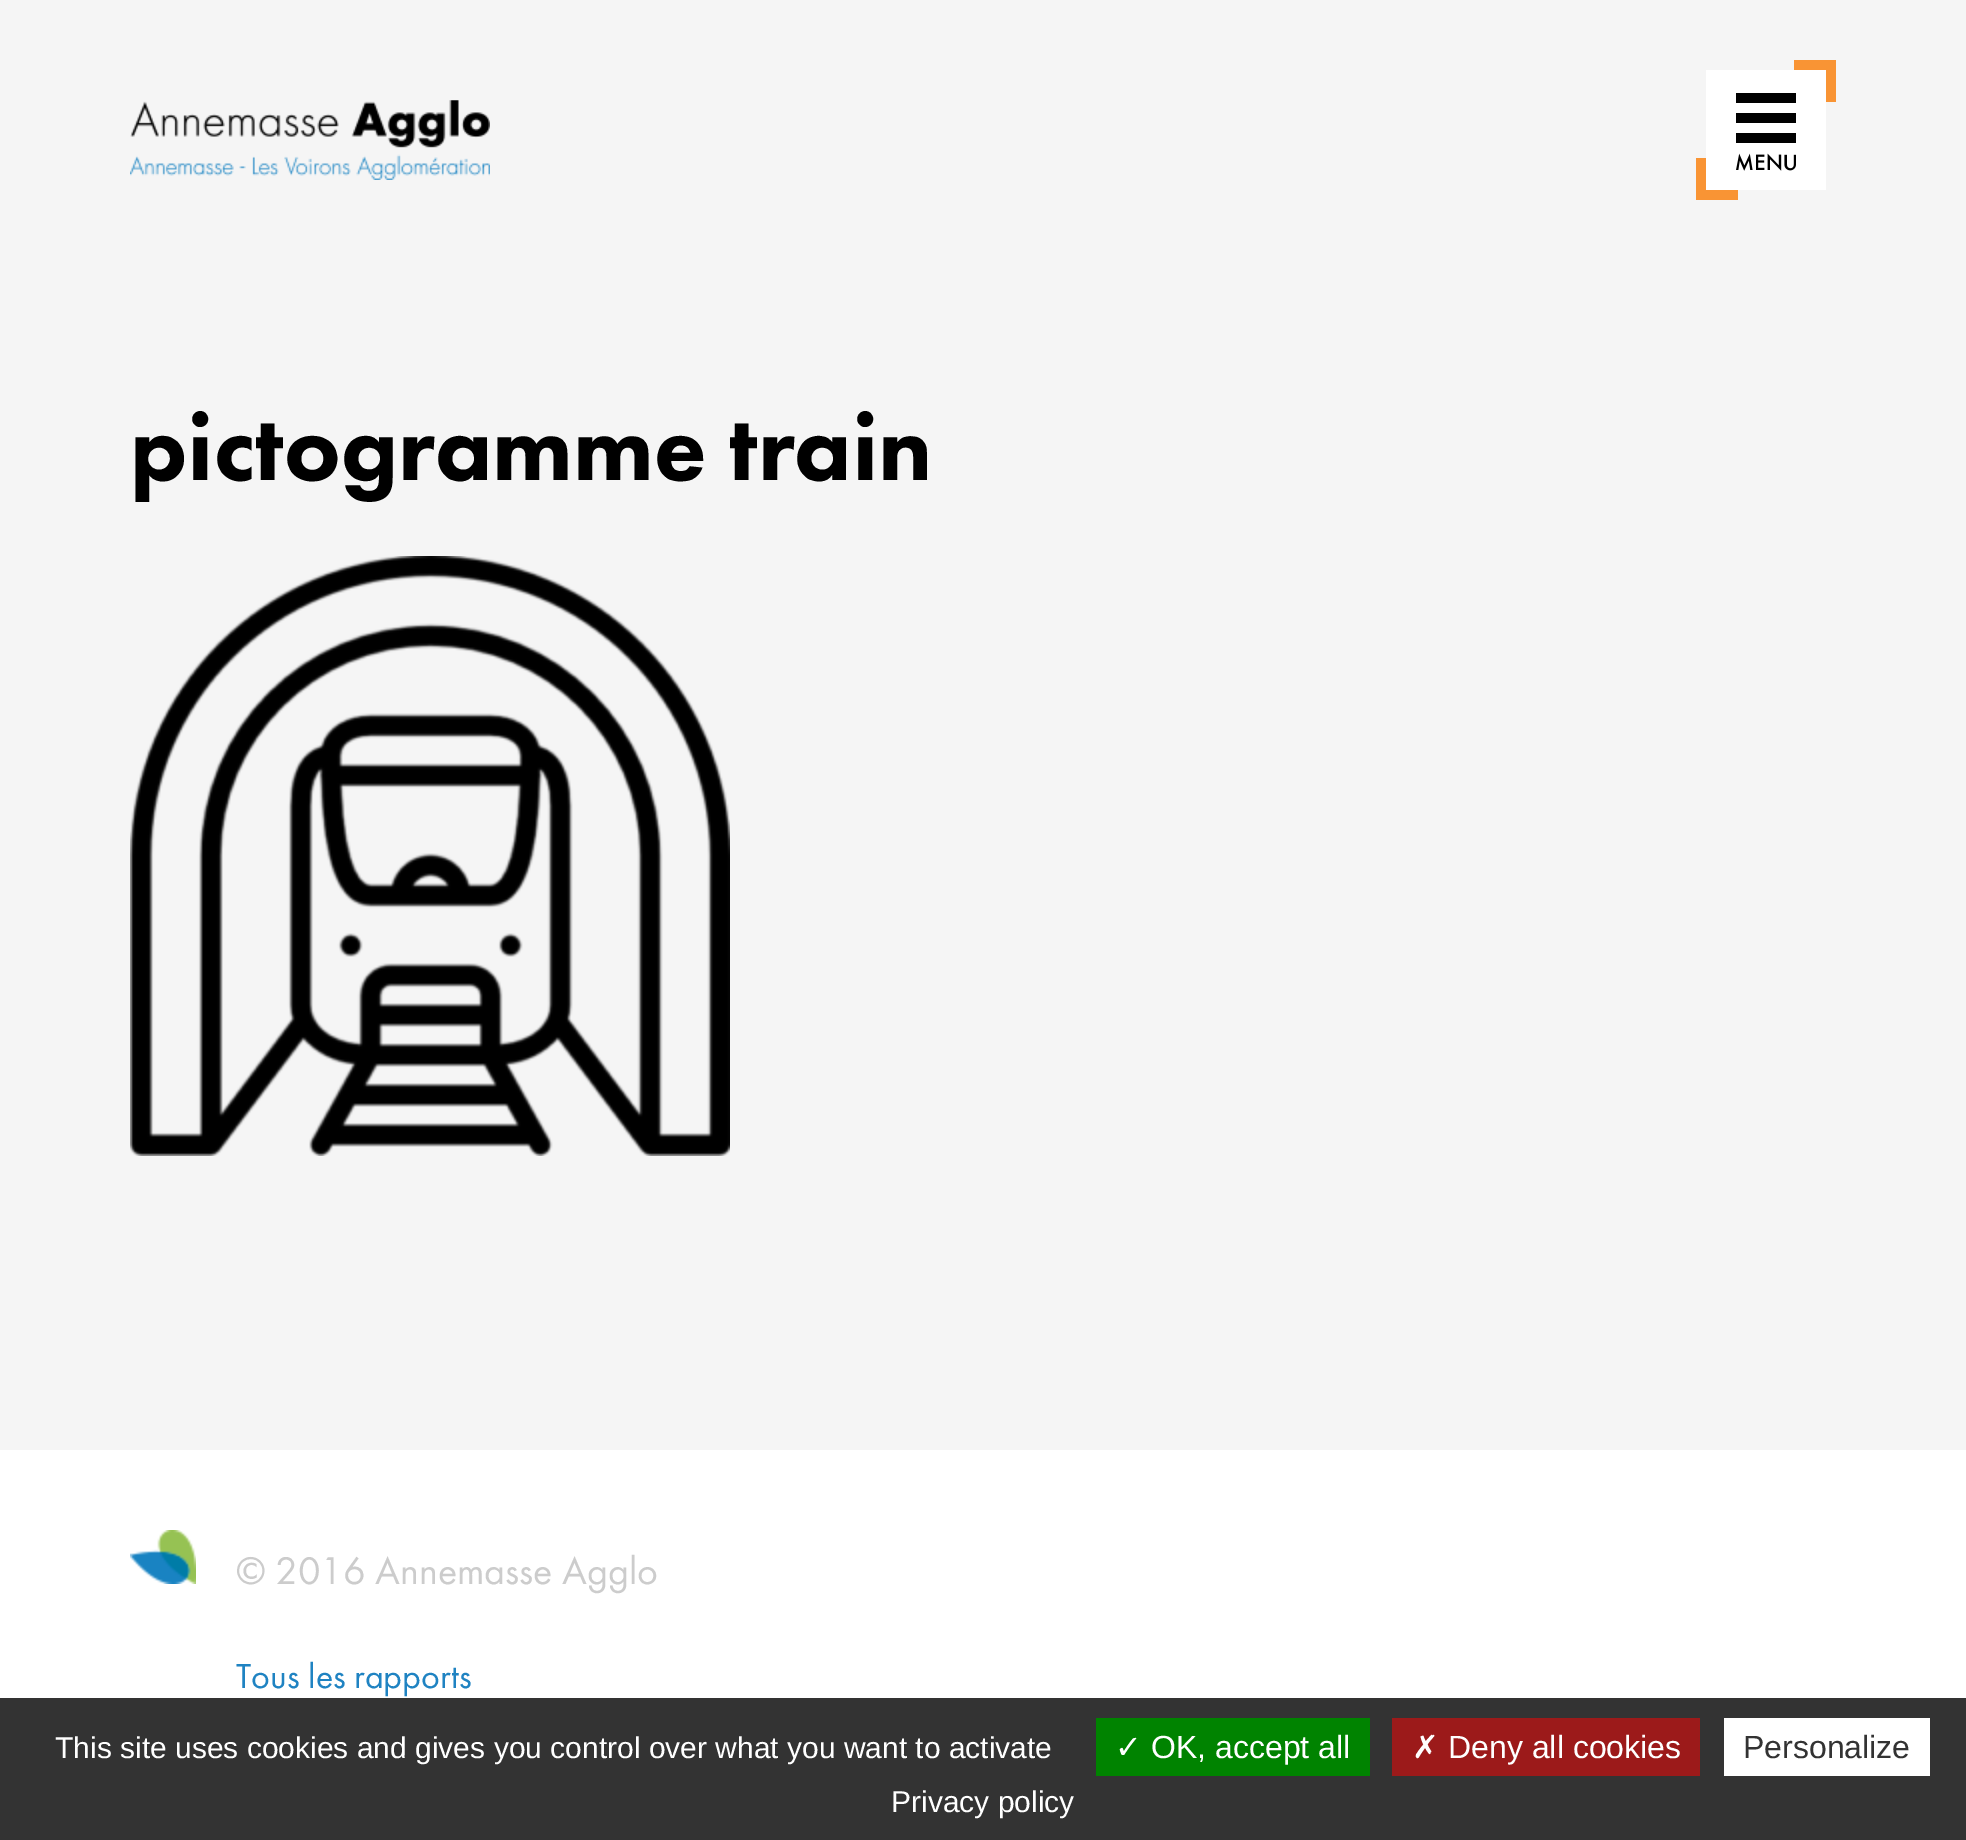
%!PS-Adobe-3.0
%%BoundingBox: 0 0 1966 1840
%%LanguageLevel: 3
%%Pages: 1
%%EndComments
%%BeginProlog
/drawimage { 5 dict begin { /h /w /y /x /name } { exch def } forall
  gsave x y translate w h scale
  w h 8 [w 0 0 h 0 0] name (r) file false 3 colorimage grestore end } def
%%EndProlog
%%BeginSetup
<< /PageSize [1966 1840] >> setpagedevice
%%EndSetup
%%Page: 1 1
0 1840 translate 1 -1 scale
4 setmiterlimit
0.961 setgray
0 0 1966 1840 rectfill
(images/1.raw) 130 100 360 80 drawimage
0.976 0.58 0.204 setrgbcolor
1794 60 32 10 rectfill
1826 60 10 42 rectfill
1 setgray
1706 70 120 120 rectfill
(images/2.raw) 1736 93 60 78 drawimage
0.976 0.58 0.204 setrgbcolor
1706 190 32 10 rectfill
1696 158 10 42 rectfill
(images/3.raw) 130 556 600 600 drawimage
1 setgray
0 1450 1966 248 rectfill
(images/4.raw) 130 1530 66 54 drawimage
0.2 setgray
0 1698 1966 142 rectfill
0 0.514 0 setrgbcolor
1096 1718 274 58 rectfill
0.612 0.102 0.102 setrgbcolor
1392 1718 308 58 rectfill
1 setgray
1724 1718 206 58 rectfill
/FuturaPT-Black [96 0 0 -96 0 0] selectfont
0 setgray
130 480 moveto (pictogramme train) show
/FuturaPT-Regular [40 0 0 -40 0 0] selectfont
0.8 setgray
236 1584 moveto (© 2016 Annemasse Agglo) show
/FuturaPT-Regular [36 0 0 -36 0 0] selectfont
0.122 0.514 0.761 setrgbcolor
236 1688 moveto (Tous les rapports) show
/LiberationSans-Regular [30 0 0 -30 0 0] selectfont
1 setgray
55 1758 moveto (This site uses cookies and gives you control over what you want to activate) show
/DejaVuSans-Regular [32 0 0 -32 0 0] selectfont
1115 1758 moveto (✓) show
/LiberationSans-Regular [32 0 0 -32 0 0] selectfont
1151 1758 moveto (OK, accept all) show
/DejaVuSans-Regular [32 0 0 -32 0 0] selectfont
1412 1758 moveto (✗) show
/LiberationSans-Regular [32 0 0 -32 0 0] selectfont
1448 1758 moveto (Deny all cookies) show
0.2 setgray
1743 1758 moveto (Personalize) show
/LiberationSans-Regular [30 0 0 -30 0 0] selectfont
1 setgray
891 1812 moveto (Privacy policy) show
showpage
%%EOF
